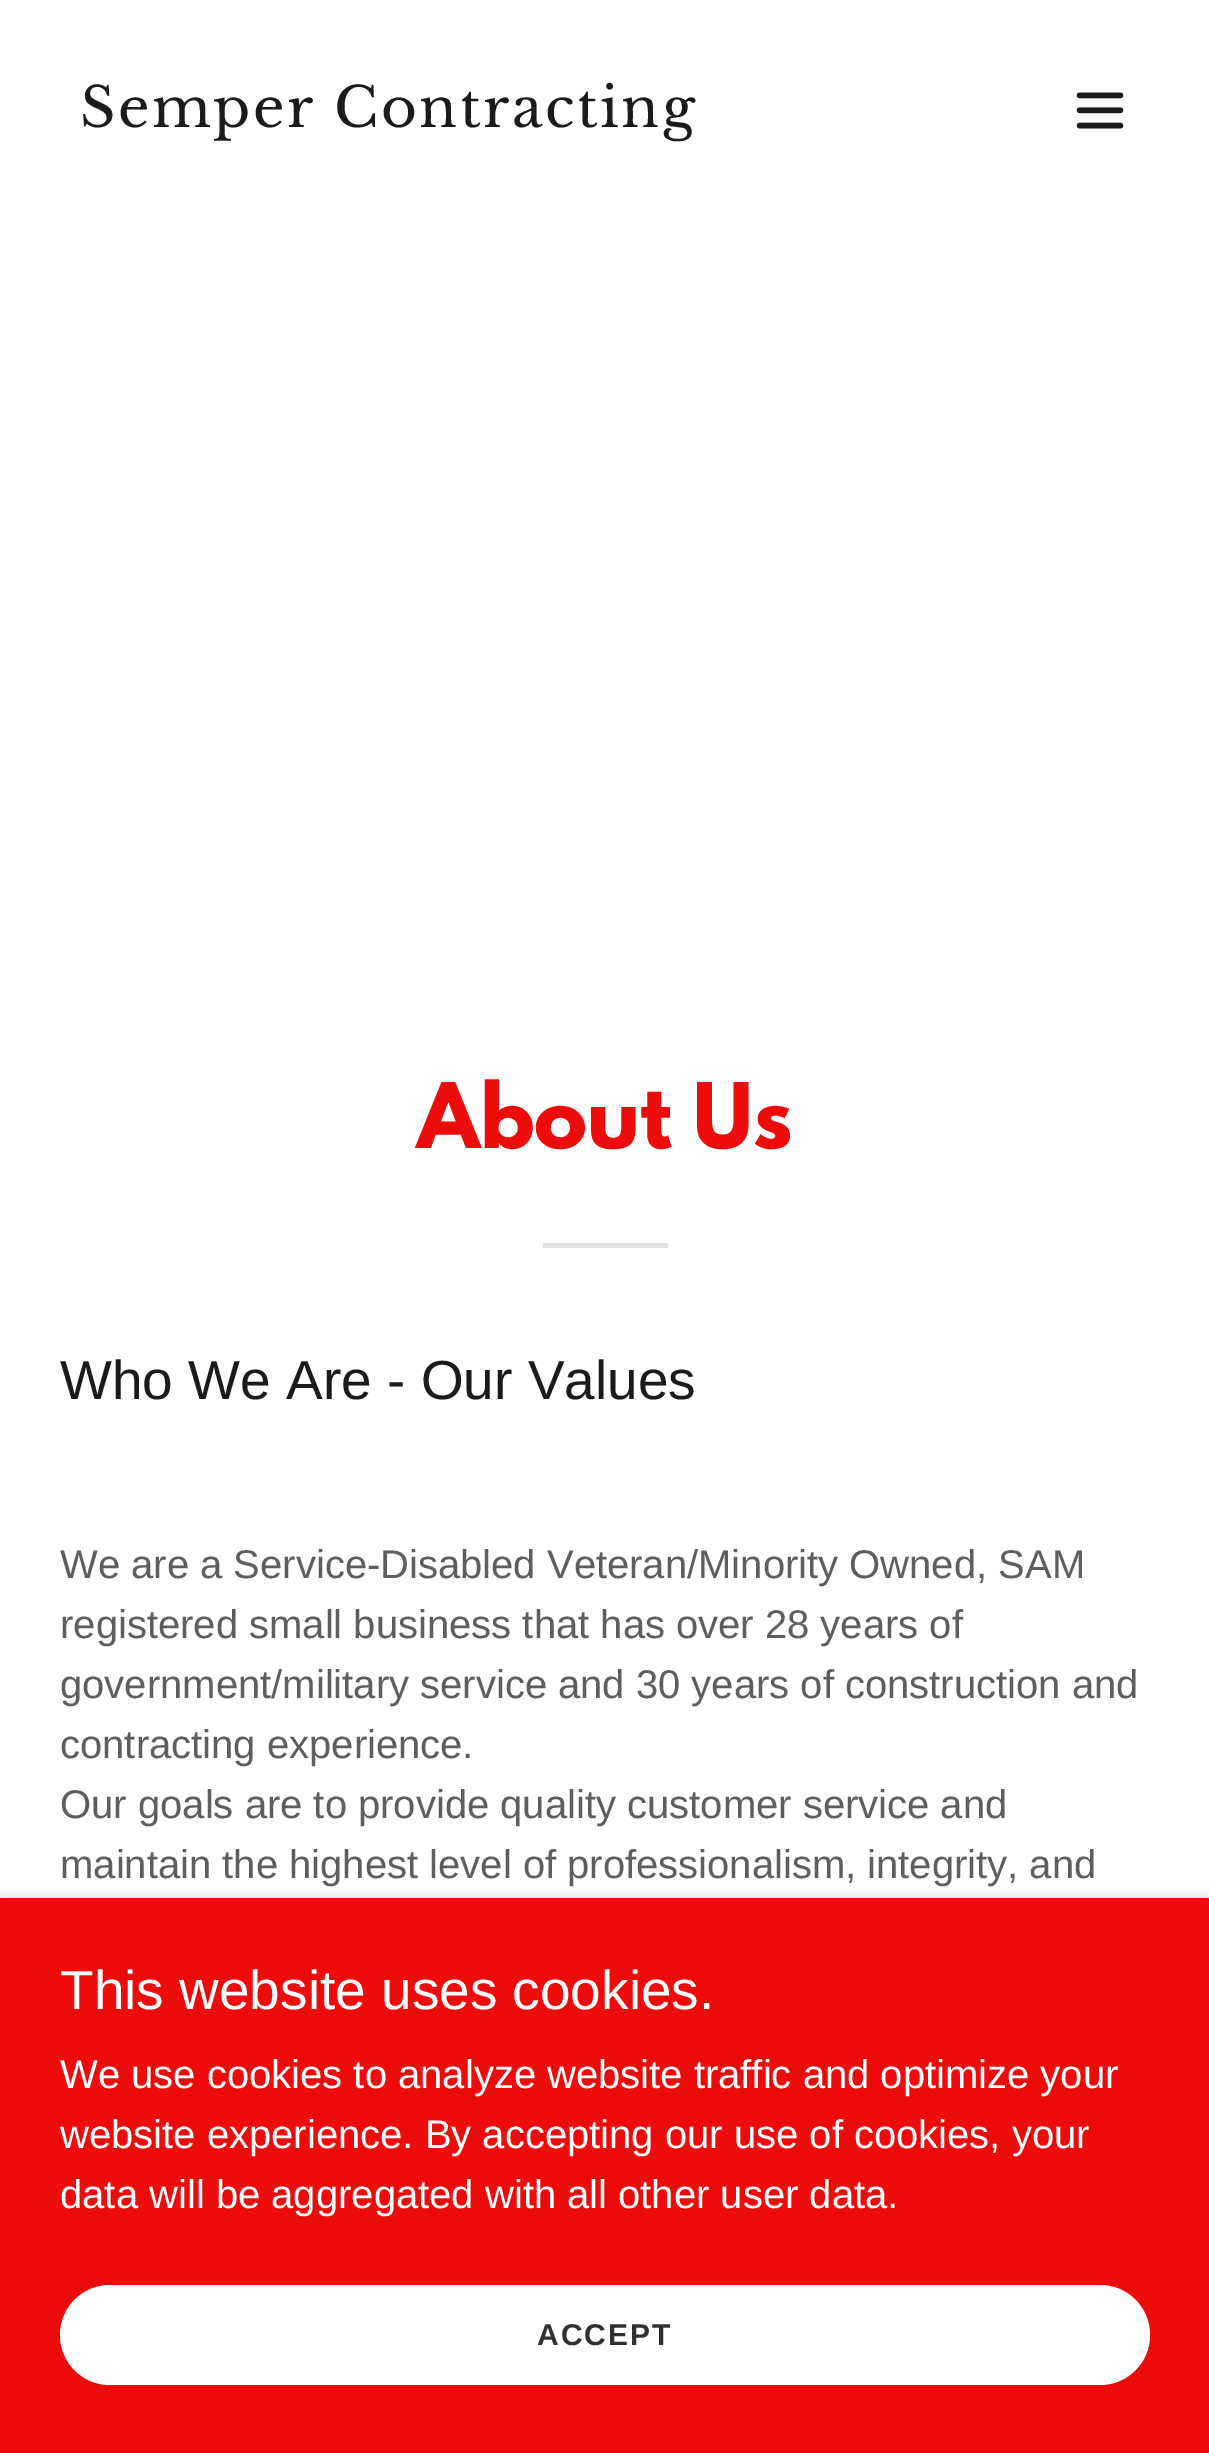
%!PS-Adobe-3.0
%%BoundingBox: 0 0 1209 2453
%%LanguageLevel: 3
%%Pages: 1
%%EndComments
%%BeginProlog
/setalpha { dup .setfillconstantalpha .setstrokeconstantalpha } def
/rrect { 5 dict begin { /r /h /w /y /x } { exch def } forall
  x r add y moveto x w add y 2 copy h add r arct x w add y h add x 1 index r arct
  x y h add x y r arct x y 2 copy exch w add exch r arct closepath end } def
/softshadow { 12 dict begin { /a /b /q /h /w /y /x } { exch def } forall gsave /was 0 def
  9 -2 -9 { dup b mul 4 div /e exch def 1 sub .425 mul 2.718 exch exp 1 add a .99 .min exch div /now exch def
    1 1 now sub 1 was sub div sub setalpha /was now def
    w h .min e 2 mul add 0 gt { x e sub y e sub w e 2 mul add h e 2 mul add
      q e add b .6 mul add w h .min 2 div e add .min 0 .max rrect fill } if } for grestore end } def
/drawimage { 5 dict begin { /h /w /y /x /name } { exch def } forall
  gsave x y translate w h scale
  w h 8 [w 0 0 h 0 0] name (r) file false 3 colorimage grestore end } def
%%EndProlog
%%BeginSetup
<< /PageSize [1209 2453] /PageUsesTransparency true >> setpagedevice
%%EndSetup
%%Page: 1 1
0 .pushpdf14devicefilter
0 2453 translate 1 -1 scale
4 setmiterlimit
1 setgray
0 0 1209 2453 rectfill
(images/1.raw) 1076 92 48 37 drawimage
0.886 setgray
543 1243 125 5 rectfill
0 setgray
0 1903 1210 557 0 7.5 0.3 softshadow
0.929 0.047 0.047 setrgbcolor
0 1898 1209 555 rectfill
1 setgray
60 2285 1090 100 50 rrect fill
/LibreBaskerville-Regular [55 0 0 -55 0 0] selectfont
0.106 setgray
80 127 moveto 2.5 0 (Semper Contracting) ashow
/LeagueSpartan-Bold [80 0 0 -80 0 0] selectfont
0.929 0.047 0.047 setrgbcolor
417 1148 moveto (About Us) show
/LiberationSans-Regular [55 0 0 -55 0 0] selectfont
0.106 setgray
60 1399 moveto (Who We Are - Our Values) show
/LiberationSans-Regular [40 0 0 -40 0 0] selectfont
0.369 setgray
60 1578 moveto (We are a Service-Disabled Veteran/Minority Owned, SAM) show
60 1638 moveto (registered small business that has over 28 years of) show
60 1698 moveto (government/military service and 30 years of construction and) show
60 1758 moveto (contracting experience.) show
60 1818 moveto (Our goals are to provide quality customer service and) show
60 1878 moveto (maintain the highest level of professionalism, integrity, and) show
/LiberationSans-Regular [55 0 0 -55 0 0] selectfont
1 setgray
60 2009 moveto (This website uses cookies.) show
/LiberationSans-Regular [40 0 0 -40 0 0] selectfont
60 2088 moveto (We use cookies to analyze website traffic and optimize your) show
60 2148 moveto (website experience. By accepting our use of cookies, your) show
60 2208 moveto (data will be aggregated with all other user data.) show
/LiberationSans-Bold [30 0 0 -30 0 0] selectfont
0.188 setgray
537 2345 moveto 2 0 (ACCEPT) ashow
.poppdf14devicefilter showpage
%%EOF
